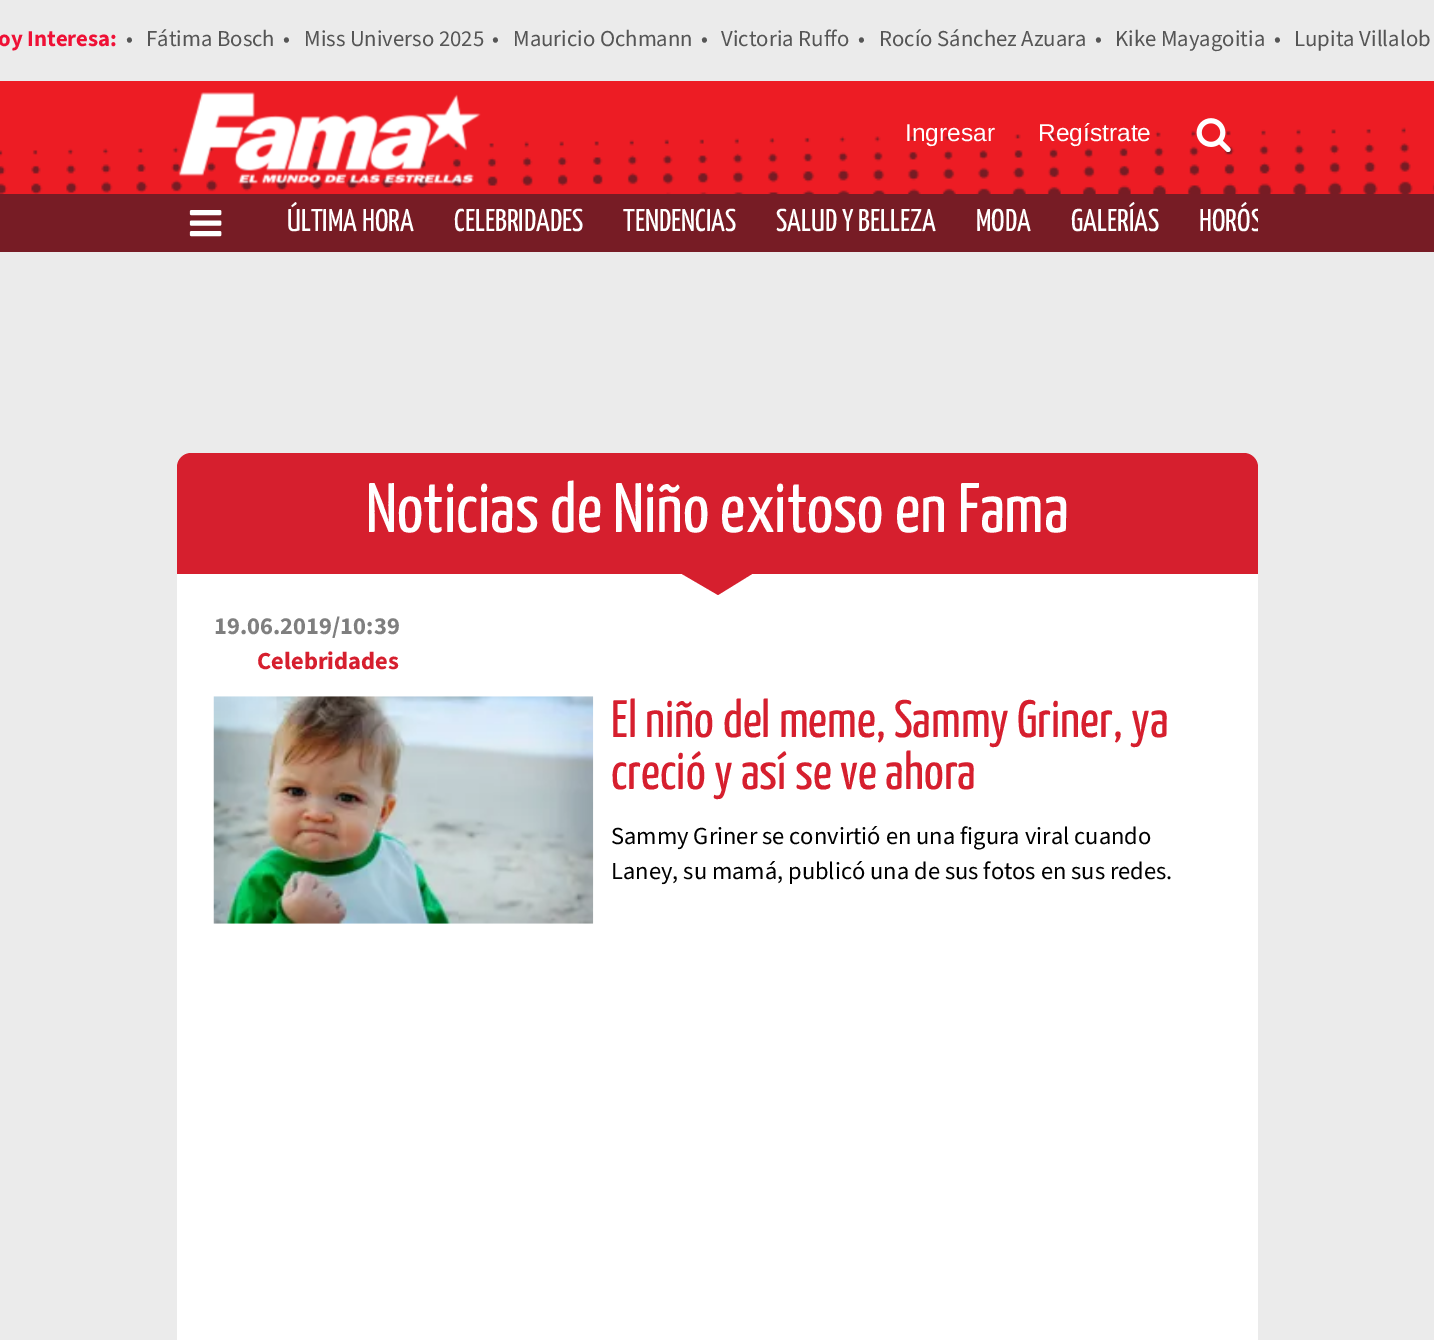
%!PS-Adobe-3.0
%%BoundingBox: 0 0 1434 1340
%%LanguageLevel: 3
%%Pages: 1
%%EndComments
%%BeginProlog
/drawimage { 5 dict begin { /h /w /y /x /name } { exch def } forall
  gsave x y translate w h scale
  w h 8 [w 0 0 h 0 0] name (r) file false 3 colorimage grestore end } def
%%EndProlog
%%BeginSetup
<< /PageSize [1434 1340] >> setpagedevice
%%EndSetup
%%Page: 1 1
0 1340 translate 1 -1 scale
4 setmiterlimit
0.922 setgray
0 0 1434 1340 rectfill
0.929 0.11 0.141 setrgbcolor
0 81 1434 113 rectfill
(images/1.raw) 0 127 1434 67 drawimage
(images/2.raw) 178 92 303 92 drawimage
(images/3.raw) 1196 118 35 34 drawimage
0.467 0.11 0.145 setrgbcolor
0 194 1434 58 rectfill
(images/4.raw) 189 210 33 27 drawimage
0.839 0.122 0.18 setrgbcolor
newpath 191 453 moveto 1244 453 lineto 1251.5 453 1258 459.5 1258 467 curveto 1258 574 lineto 177 574 lineto 177 467 lineto 177 459.5 183.5 453 191 453 curveto closepath fill
1 setgray
177 574 1081 766 rectfill
0.839 0.122 0.18 setrgbcolor
newpath 682 574 moveto 752 574 lineto 718 595 lineto closepath fill
(images/5.raw) 213 696 381 228 drawimage
/SourceSans3-Bold [22.75 0 0 -22.75 0 0] selectfont
0.937 0.067 0.212 setrgbcolor
-2 46 moveto (oy Interesa:) show
/SourceSans3-Regular [22.75 0 0 -22.75 0 0] selectfont
0.333 setgray
126 46 moveto (•) show
146 46 moveto (Fátima Bosch) show
283 46 moveto (•) show
304 46 moveto (Miss Universo 2025) show
492 46 moveto (•) show
513 46 moveto (Mauricio Ochmann) show
701 46 moveto (•) show
721 46 moveto (Victoria Ruffo) show
858 46 moveto (•) show
879 46 moveto (Rocío Sánchez Azuara) show
1095 46 moveto (•) show
1115 46 moveto (Kike Mayagoitia) show
1274 46 moveto (•) show
1294 46 moveto (Lupita Villalob) show
/LiberationSans-Regular [24.5 0 0 -24.5 0 0] selectfont
1 setgray
905 141 moveto (Ingresar) show
1038 141 moveto (Regístrate) show
/YanoneKaffeesatz-ExtraLight [31.5 0 0 -31.5 0 0] selectfont
287 231 moveto (ÚLTIMA HORA) show
454 231 moveto (CELEBRIDADES) show
623 231 moveto (TENDENCIAS) show
776 231 moveto (SALUD Y BELLEZA) show
976 231 moveto (MODA) show
1071 231 moveto (GALERÍAS) show
gsave
287 194 971 58 rectclip
1199 231 moveto (HORÓS) show
grestore
/YanoneKaffeesatz-ExtraLight [70 0 0 -70 0 0] selectfont
366 532 moveto (Noticias de Niño exitoso en Fama) show
/SourceSans3-Bold [24.5 0 0 -24.5 0 0] selectfont
0.498 setgray
214 634 moveto (19.06.2019/10:39) show
0.839 0.122 0.18 setrgbcolor
257 669 moveto (Celebridades) show
/YanoneKaffeesatz-ExtraLight [52.5 0 0 -52.5 0 0] selectfont
611 737 moveto (El niño del meme, Sammy Griner, ya) show
611 789 moveto (creció y así se ve ahora) show
/SourceSans3-Regular [24.5 0 0 -24.5 0 0] selectfont
0 setgray
611 844 moveto (Sammy Griner se convirtió en una figura viral cuando) show
611 879 moveto (Laney, su mamá, publicó una de sus fotos en sus redes.) show
showpage
%%EOF
